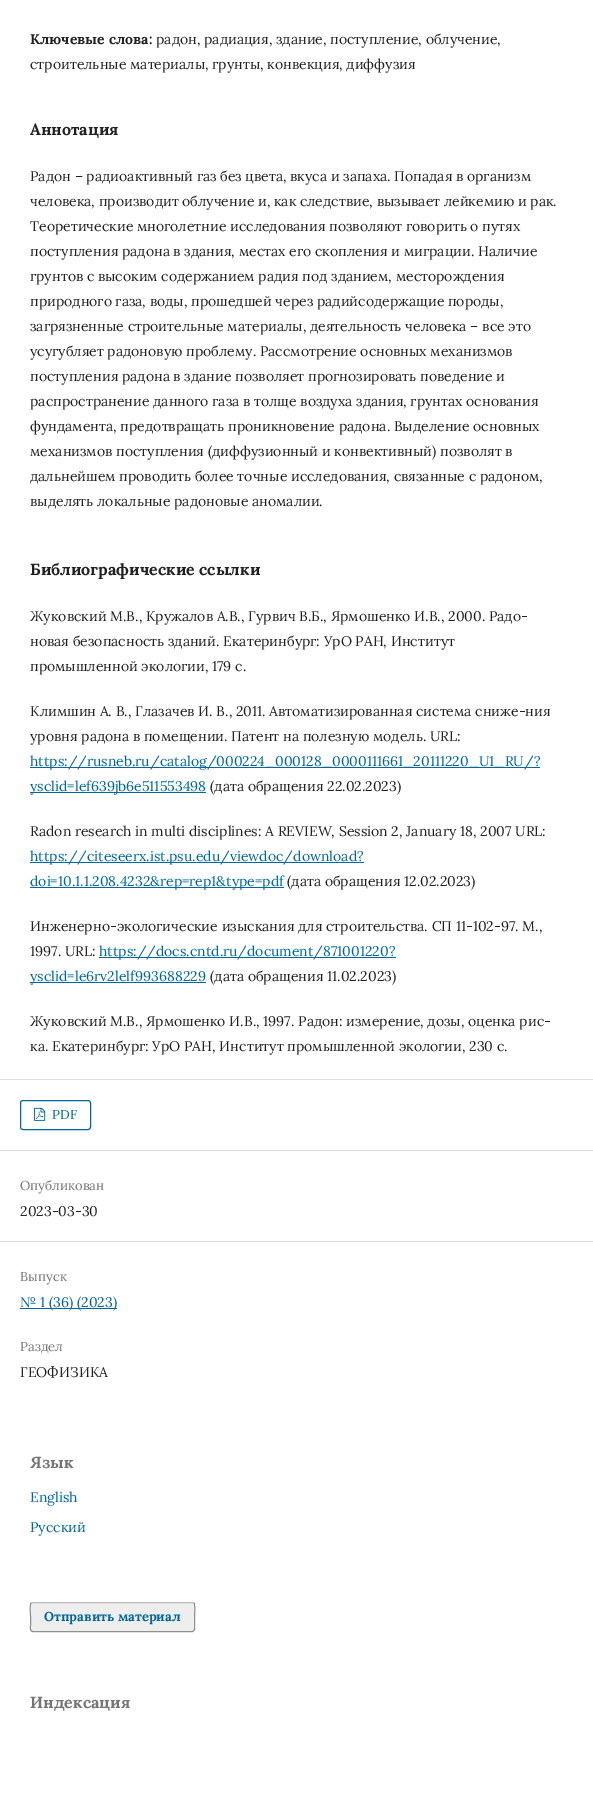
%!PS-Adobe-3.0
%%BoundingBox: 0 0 593 1816
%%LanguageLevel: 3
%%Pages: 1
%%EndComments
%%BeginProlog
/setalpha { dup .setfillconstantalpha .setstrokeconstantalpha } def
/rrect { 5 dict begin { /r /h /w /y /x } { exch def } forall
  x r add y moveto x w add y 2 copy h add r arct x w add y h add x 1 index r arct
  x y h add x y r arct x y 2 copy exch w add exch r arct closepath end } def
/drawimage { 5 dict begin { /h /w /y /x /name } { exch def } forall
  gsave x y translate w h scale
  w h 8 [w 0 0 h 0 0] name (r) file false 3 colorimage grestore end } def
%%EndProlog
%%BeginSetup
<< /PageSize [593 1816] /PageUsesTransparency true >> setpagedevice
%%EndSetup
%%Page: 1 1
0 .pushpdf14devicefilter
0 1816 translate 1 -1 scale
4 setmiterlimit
1 setgray
0 0 593 1816 rectfill
0 0.404 0.596 setrgbcolor
30 767 510 1 rectfill
30 792 176 1 rectfill
30 862 334 1 rectfill
30 887 254 1 rectfill
99 957 297 1 rectfill
30 982 176 1 rectfill
0.867 setgray
0 1079 593 1 rectfill
0 1150 593 1 rectfill
0 0.404 0.596 setrgbcolor
20.5 1100.5 70 29 2.5 rrect stroke
(images/1.raw) 34 1107 12 14 drawimage
0.867 setgray
0 1241 593 1 rectfill
0 0.404 0.596 setrgbcolor
20 1308 97 1 rectfill
0.933 setgray
30 1602 165 30 3 rrect fill
0.733 setgray
newpath 31 1603 moveto 33 1602.5 lineto 192 1602.5 lineto 194 1603 lineto stroke
0.4 setalpha
0 setgray
newpath 194 1603 moveto 195.5 1605 194.5 1614.5 194.5 1617 curveto 194.5 1625 lineto 194.5 1627 195.5 1631.5 192 1631.5 curveto 33 1631.5 lineto 29.5 1631.5 30.5 1627 30.5 1625 curveto 30.5 1617 lineto 30.5 1614.5 29.5 1605 31 1603 curveto stroke
/Lora-Bold [14 0 0 -14 0 0] selectfont
1 setalpha
0.129 setgray
30 44 moveto (Ключевые слова:) show
/Lora-Regular [14 0 0 -14 0 0] selectfont
156 44 moveto (радон, радиация, здание, поступление, облучение,) show
30 69 moveto (строительные материалы, грунты, конвекция, диффузия) show
/Lora-Bold [16 0 0 -16 0 0] selectfont
30 135 moveto (Аннотация) show
/Lora-Regular [14 0 0 -14 0 0] selectfont
30 181 moveto (Радон – радиоактивный газ без цвета, вкуса и запаха. Попадая в организм) show
30 206 moveto (человека, производит облучение и, как следствие, вызывает лейкемию и рак.) show
30 231 moveto (Теоретические многолетние исследования позволяют говорить о путях) show
30 256 moveto (поступления радона в здания, местах его скопления и миграции. Наличие) show
30 281 moveto (грунтов с высоким содержанием радия под зданием, месторождения) show
30 306 moveto (природного газа, воды, прошедшей через радийсодержащие породы,) show
30 331 moveto (загрязненные строительные материалы, деятельность человека – все это) show
30 356 moveto (усугубляет радоновую проблему. Рассмотрение основных механизмов) show
30 381 moveto (поступления радона в здание позволяет прогнозировать поведение и) show
30 406 moveto (распространение данного газа в толще воздуха здания, грунтах основания) show
30 431 moveto (фундамента, предотвращать проникновение радона. Выделение основных) show
30 456 moveto (механизмов поступления \(диффузионный и конвективный\) позволят в) show
30 481 moveto (дальнейшем проводить более точные исследования, связанные с радоном,) show
30 506 moveto (выделять локальные радоновые аномалии.) show
/Lora-Bold [16 0 0 -16 0 0] selectfont
30 575 moveto (Библиографические ссылки) show
/Lora-Regular [14 0 0 -14 0 0] selectfont
30 621 moveto (Жуковский М.В., Кружалов А.В., Гурвич В.Б., Ярмошенко И.В., 2000. Радо-) show
30 646 moveto (новая безопасность зданий. Екатеринбург: УрО РАН, Институт) show
30 671 moveto (промышленной экологии, 179 с.) show
30 716 moveto (Климшин А. В., Глазачев И. В., 2011. Автоматизированная система сниже-ния) show
30 741 moveto (уровня радона в помещении. Патент на полезную модель. URL:) show
0 0.404 0.596 setrgbcolor
30 766 moveto (https://rusneb.ru/catalog/000224_000128_0000111661_20111220_U1_RU/?) show
30 791 moveto (ysclid=lef639jb6e511553498) show
0.129 setgray
210 791 moveto (\(дата обращения 22.02.2023\)) show
30 836 moveto (Radon research in multi disciplines: A REVIEW, Session 2, January 18, 2007 URL:) show
0 0.404 0.596 setrgbcolor
30 861 moveto (https://citeseerx.ist.psu.edu/viewdoc/download?) show
30 886 moveto (doi=10.1.1.208.4232&rep=rep1&type=pdf) show
0.129 setgray
287 886 moveto (\(дата обращения 12.02.2023\)) show
30 931 moveto (Инженерно-экологические изыскания для строительства. СП 11-102-97. М.,) show
30 956 moveto (1997. URL:) show
0 0.404 0.596 setrgbcolor
99 956 moveto (https://docs.cntd.ru/document/871001220?) show
30 981 moveto (ysclid=le6rv2lelf993688229) show
0.129 setgray
210 981 moveto (\(дата обращения 11.02.2023\)) show
30 1026 moveto (Жуковский М.В., Ярмошенко И.В., 1997. Радон: измерение, дозы, оценка рис-) show
30 1051 moveto (ка. Екатеринбург: УрО РАН, Институт промышленной экологии, 230 с.) show
/Lora-Regular [13 0 0 -13 0 0] selectfont
0 0.404 0.596 setrgbcolor
52 1119 moveto (PDF) show
0.459 setgray
20 1190 moveto (Опубликован) show
/Lora-Regular [14 0 0 -14 0 0] selectfont
0.129 setgray
20 1216 moveto (2023-03-30) show
/Lora-Regular [13 0 0 -13 0 0] selectfont
0.459 setgray
20 1281 moveto (Выпуск) show
/Lora-Regular [14 0 0 -14 0 0] selectfont
0 0.404 0.596 setrgbcolor
20 1307 moveto (№ 1 \(36\) \(2023\)) show
/Lora-Regular [13 0 0 -13 0 0] selectfont
0.459 setgray
20 1351 moveto (Раздел) show
/Lora-Regular [14 0 0 -14 0 0] selectfont
0.129 setgray
20 1377 moveto (ГЕОФИЗИКА) show
/Lora-Bold [16 0 0 -16 0 0] selectfont
0.459 setgray
30 1468 moveto (Язык) show
/Lora-Regular [14 0 0 -14 0 0] selectfont
0 0.404 0.596 setrgbcolor
30 1502 moveto (English) show
30 1532 moveto (Русский) show
/Lora-Bold [13 0 0 -13 0 0] selectfont
44 1621 moveto (Отправить материал) show
/Lora-Bold [16 0 0 -16 0 0] selectfont
0.459 setgray
30 1708 moveto (Индексация) show
.poppdf14devicefilter showpage
%%EOF
